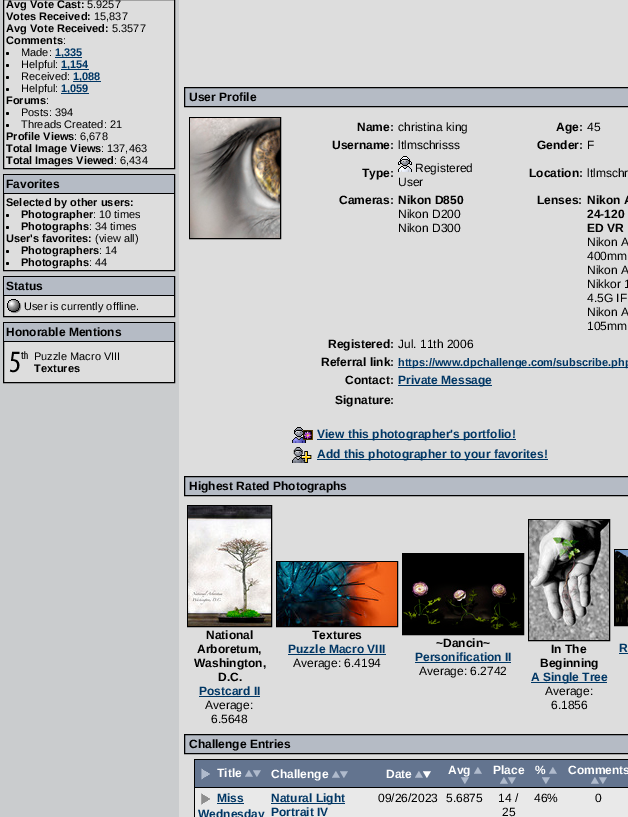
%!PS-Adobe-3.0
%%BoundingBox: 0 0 628 817
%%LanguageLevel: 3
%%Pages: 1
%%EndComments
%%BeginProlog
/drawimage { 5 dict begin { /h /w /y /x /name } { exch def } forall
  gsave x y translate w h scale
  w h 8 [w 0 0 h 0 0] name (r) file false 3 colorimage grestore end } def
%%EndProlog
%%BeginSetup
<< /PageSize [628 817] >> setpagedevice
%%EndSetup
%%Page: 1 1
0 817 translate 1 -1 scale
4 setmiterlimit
0.867 setgray
0 0 628 817 rectfill
0.792 0.8 0.808 setrgbcolor
0 0 179 817 rectfill
0.867 setgray
newpath 3.5 -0.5 moveto 174.5 -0.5 lineto 174.5 168.5 lineto 3.5 168.5 lineto closepath gsave fill grestore
0 setgray
stroke
newpath 7.5 53.5 1.5 0 360 arc closepath fill
0 0.212 0.392 setrgbcolor
55 57 27 1 rectfill
0 setgray
newpath 7.5 65.5 1.5 0 360 arc closepath fill
0 0.212 0.392 setrgbcolor
61 69 28 1 rectfill
0 setgray
newpath 7.5 77.5 1.5 0 360 arc closepath fill
0 0.212 0.392 setrgbcolor
73 81 28 1 rectfill
0 setgray
newpath 7.5 89.5 1.5 0 360 arc closepath fill
0 0.212 0.392 setrgbcolor
61 93 28 1 rectfill
0 setgray
newpath 7.5 113.5 1.5 0 360 arc closepath fill
newpath 7.5 125.5 1.5 0 360 arc closepath fill
0.867 setgray
4 194 170 76 rectfill
0 setgray
3.5 174.5 171 96 rectstroke
0.71 0.733 0.773 setrgbcolor
4 175 170 18 rectfill
0 setgray
4 193 170 1 rectfill
newpath 7.5 215.5 1.5 0 360 arc closepath fill
newpath 7.5 227.5 1.5 0 360 arc closepath fill
newpath 7.5 251.5 1.5 0 360 arc closepath fill
newpath 7.5 263.5 1.5 0 360 arc closepath fill
0.867 setgray
4 296 170 20 rectfill
0 setgray
3.5 276.5 171 40 rectstroke
0.71 0.733 0.773 setrgbcolor
4 277 170 18 rectfill
0 setgray
4 295 170 1 rectfill
(images/1.raw) 7 299 15 15 drawimage
0.867 setgray
4 342 170 40 rectfill
0 setgray
3.5 322.5 171 60 rectstroke
0.71 0.733 0.773 setrgbcolor
4 323 170 18 rectfill
0 setgray
4 341 170 1 rectfill
(images/2.raw) 9 351 19 22 drawimage
0.71 0.733 0.773 setrgbcolor
newpath 184.5 87.5 moveto 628.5 87.5 lineto 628.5 106.5 lineto 184.5 106.5 lineto closepath gsave fill grestore
0 setgray
stroke
189.5 117.5 91 121 rectstroke
(images/3.raw) 190 118 90 120 drawimage
(images/4.raw) 398 156 14 16 drawimage
0 0.212 0.392 setrgbcolor
398 367 230 1 rectfill
398 385 94 1 rectfill
(images/5.raw) 292 427 21 16 drawimage
317 439 199 1 rectfill
(images/6.raw) 292 447 20 16 drawimage
317 459 231 1 rectfill
0.71 0.733 0.773 setrgbcolor
newpath 184.5 476.5 moveto 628.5 476.5 lineto 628.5 495.5 lineto 184.5 495.5 lineto closepath gsave fill grestore
0 setgray
stroke
187.5 505.5 84 121 rectstroke
(images/7.raw) 188 506 83 120 drawimage
0 0.212 0.392 setrgbcolor
199 696 61 1 rectfill
0 setgray
276.5 561.5 121 65 rectstroke
(images/8.raw) 277 562 120 64 drawimage
0 0.212 0.392 setrgbcolor
288 654 98 1 rectfill
0 setgray
402.5 553.5 121 81 rectstroke
(images/9.raw) 403 554 120 80 drawimage
0 0.212 0.392 setrgbcolor
415 662 96 1 rectfill
0 setgray
528.5 519.5 81 121 rectstroke
(images/10.raw) 529 520 80 120 drawimage
0 0.212 0.392 setrgbcolor
531 682 76 1 rectfill
0 setgray
614.5 549.5 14 76 rectstroke
(images/11.raw) 615 550 13 75 drawimage
0 0.212 0.392 setrgbcolor
619 653 9 1 rectfill
0.71 0.733 0.773 setrgbcolor
newpath 184.5 734.5 moveto 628.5 734.5 lineto 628.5 753.5 lineto 184.5 753.5 lineto closepath gsave fill grestore
0 setgray
stroke
194.5 759.5 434 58 rectstroke
0.388 0.455 0.561 setrgbcolor
195 760 433 27 rectfill
0 setgray
195 787 433 1 rectfill
(images/12.raw) 201 768 9 12 drawimage
(images/13.raw) 245 770 8 7 drawimage
(images/14.raw) 253 770 8 7 drawimage
(images/13.raw) 332 771 8 7 drawimage
(images/14.raw) 340 771 8 7 drawimage
(images/13.raw) 415 771 8 7 drawimage
(images/15.raw) 423 771 8 7 drawimage
(images/13.raw) 474 767 8 7 drawimage
(images/14.raw) 461 777 8 7 drawimage
(images/13.raw) 500 777 8 7 drawimage
(images/14.raw) 508 777 8 7 drawimage
(images/13.raw) 549 767 8 7 drawimage
(images/14.raw) 542 777 8 7 drawimage
(images/13.raw) 591 777 8 7 drawimage
(images/14.raw) 599 777 8 7 drawimage
0.914 setgray
195 788 433 29 rectfill
(images/16.raw) 201 793 9 12 drawimage
0 0.212 0.392 setrgbcolor
217 803 27 1 rectfill
271 803 74 1 rectfill
/LiberationSans-Bold [11 0 0 -11 0 0] selectfont
0 setgray
6 8 moveto (Avg Vote Cast:) show
/LiberationSans-Regular [11 0 0 -11 0 0] selectfont
87 8 moveto (5.9257) show
/LiberationSans-Bold [11 0 0 -11 0 0] selectfont
6 20 moveto (Votes Received:) show
/LiberationSans-Regular [11 0 0 -11 0 0] selectfont
94 20 moveto (15,837) show
/LiberationSans-Bold [11 0 0 -11 0 0] selectfont
6 32 moveto (Avg Vote Received:) show
/LiberationSans-Regular [11 0 0 -11 0 0] selectfont
112 32 moveto (5.3577) show
/LiberationSans-Bold [11 0 0 -11 0 0] selectfont
6 44 moveto (Comments) show
/LiberationSans-Regular [11 0 0 -11 0 0] selectfont
63 44 moveto (:) show
21 56 moveto (Made:) show
/LiberationSans-Bold [11 0 0 -11 0 0] selectfont
0 0.212 0.392 setrgbcolor
55 56 moveto (1,335) show
/LiberationSans-Regular [11 0 0 -11 0 0] selectfont
0 setgray
21 68 moveto (Helpful:) show
/LiberationSans-Bold [11 0 0 -11 0 0] selectfont
0 0.212 0.392 setrgbcolor
61 68 moveto (1,154) show
/LiberationSans-Regular [11 0 0 -11 0 0] selectfont
0 setgray
21 80 moveto (Received:) show
/LiberationSans-Bold [11 0 0 -11 0 0] selectfont
0 0.212 0.392 setrgbcolor
73 80 moveto (1,088) show
/LiberationSans-Regular [11 0 0 -11 0 0] selectfont
0 setgray
21 92 moveto (Helpful:) show
/LiberationSans-Bold [11 0 0 -11 0 0] selectfont
0 0.212 0.392 setrgbcolor
61 92 moveto (1,059) show
0 setgray
6 104 moveto (Forums) show
/LiberationSans-Regular [11 0 0 -11 0 0] selectfont
46 104 moveto (:) show
21 116 moveto (Posts: 394) show
21 128 moveto (Threads Created: 21) show
/LiberationSans-Bold [11 0 0 -11 0 0] selectfont
6 140 moveto (Profile Views) show
/LiberationSans-Regular [11 0 0 -11 0 0] selectfont
74 140 moveto (: 6,678) show
/LiberationSans-Bold [11 0 0 -11 0 0] selectfont
6 152 moveto (Total Image Views) show
/LiberationSans-Regular [11 0 0 -11 0 0] selectfont
101 152 moveto (: 137,463) show
/LiberationSans-Bold [11 0 0 -11 0 0] selectfont
6 164 moveto (Total Images Viewed) show
/LiberationSans-Regular [11 0 0 -11 0 0] selectfont
114 164 moveto (: 6,434) show
/LiberationSans-Bold [12 0 0 -12 0 0] selectfont
6 188 moveto (Favorites) show
/LiberationSans-Bold [11 0 0 -11 0 0] selectfont
6 206 moveto (Selected by other users:) show
21 218 moveto (Photographer) show
/LiberationSans-Regular [11 0 0 -11 0 0] selectfont
93 218 moveto (: 10 times) show
/LiberationSans-Bold [11 0 0 -11 0 0] selectfont
21 230 moveto (Photographs) show
/LiberationSans-Regular [11 0 0 -11 0 0] selectfont
89 230 moveto (: 34 times) show
/LiberationSans-Bold [11 0 0 -11 0 0] selectfont
6 242 moveto (User's favorites:) show
/LiberationSans-Regular [11 0 0 -11 0 0] selectfont
95 242 moveto (\(view all\)) show
/LiberationSans-Bold [11 0 0 -11 0 0] selectfont
21 254 moveto (Photographers) show
/LiberationSans-Regular [11 0 0 -11 0 0] selectfont
99 254 moveto (: 14) show
/LiberationSans-Bold [11 0 0 -11 0 0] selectfont
21 266 moveto (Photographs) show
/LiberationSans-Regular [11 0 0 -11 0 0] selectfont
89 266 moveto (: 44) show
/LiberationSans-Bold [12 0 0 -12 0 0] selectfont
6 290 moveto (Status) show
/LiberationSans-Regular [11 0 0 -11 0 0] selectfont
24 310 moveto (User is currently offline.) show
/LiberationSans-Bold [12 0 0 -12 0 0] selectfont
6 336 moveto (Honorable Mentions) show
/LiberationSans-Regular [11 0 0 -11 0 0] selectfont
34 360 moveto (Puzzle Macro VIII) show
/LiberationSans-Bold [11 0 0 -11 0 0] selectfont
34 372 moveto (Textures) show
/LiberationSans-Bold [12 0 0 -12 0 0] selectfont
189 101 moveto (User Profile) show
357 131 moveto (Name:) show
/LiberationSans-Regular [12 0 0 -12 0 0] selectfont
398 131 moveto (christina king) show
/LiberationSans-Bold [12 0 0 -12 0 0] selectfont
556 131 moveto (Age:) show
/LiberationSans-Regular [12 0 0 -12 0 0] selectfont
587 131 moveto (45) show
/LiberationSans-Bold [12 0 0 -12 0 0] selectfont
332 149 moveto (Username:) show
/LiberationSans-Regular [12 0 0 -12 0 0] selectfont
398 149 moveto (ltlmschrisss) show
/LiberationSans-Bold [12 0 0 -12 0 0] selectfont
537 149 moveto (Gender:) show
/LiberationSans-Regular [12 0 0 -12 0 0] selectfont
587 149 moveto (F) show
/LiberationSans-Bold [12 0 0 -12 0 0] selectfont
362 177 moveto (Type:) show
/LiberationSans-Regular [12 0 0 -12 0 0] selectfont
415 172 moveto (Registered) show
398 186 moveto (User) show
/LiberationSans-Bold [12 0 0 -12 0 0] selectfont
529 177 moveto (Location:) show
/LiberationSans-Regular [12 0 0 -12 0 0] selectfont
587 177 moveto (ltlmschr) show
/LiberationSans-Bold [12 0 0 -12 0 0] selectfont
339 204 moveto (Cameras:) show
398 204 moveto (Nikon D850) show
/LiberationSans-Regular [12 0 0 -12 0 0] selectfont
398 218 moveto (Nikon D200) show
398 232 moveto (Nikon D300) show
/LiberationSans-Bold [12 0 0 -12 0 0] selectfont
537 204 moveto (Lenses:) show
587 204 moveto (Nikon A) show
587 218 moveto (24-120) show
587 232 moveto (ED VR) show
/LiberationSans-Regular [12 0 0 -12 0 0] selectfont
587 246 moveto (Nikon A) show
587 260 moveto (400mm) show
587 274 moveto (Nikon A) show
587 288 moveto (Nikkor 1) show
587 302 moveto (4.5G IF) show
587 316 moveto (Nikon A) show
587 330 moveto (105mm) show
/LiberationSans-Bold [12 0 0 -12 0 0] selectfont
328 348 moveto (Registered:) show
/LiberationSans-Regular [12 0 0 -12 0 0] selectfont
398 348 moveto (Jul. 11th 2006) show
/LiberationSans-Bold [12 0 0 -12 0 0] selectfont
321 366 moveto (Referral link:) show
/LiberationSans-Bold [11 0 0 -11 0 0] selectfont
0 0.212 0.392 setrgbcolor
398 366 moveto (https://www.dpchallenge.com/subscribe.php) show
/LiberationSans-Bold [12 0 0 -12 0 0] selectfont
0 setgray
345 384 moveto (Contact:) show
0 0.212 0.392 setrgbcolor
398 384 moveto (Private Message) show
0 setgray
335 404 moveto (Signature:) show
0 0.212 0.392 setrgbcolor
317 438 moveto (View this photographer's portfolio!) show
317 458 moveto (Add this photographer to your favorites!) show
0 setgray
189 490 moveto (Highest Rated Photographs) show
206 639 moveto (National) show
197 653 moveto (Arboretum,) show
194 667 moveto (Washington,) show
218 681 moveto (D.C.) show
0 0.212 0.392 setrgbcolor
199 695 moveto (Postcard II) show
/LiberationSans-Regular [12 0 0 -12 0 0] selectfont
0 setgray
205 709 moveto (Average:) show
211 723 moveto (6.5648) show
/LiberationSans-Bold [12 0 0 -12 0 0] selectfont
312 639 moveto (Textures) show
0 0.212 0.392 setrgbcolor
288 653 moveto (Puzzle Macro VIII) show
/LiberationSans-Regular [12 0 0 -12 0 0] selectfont
0 setgray
293 667 moveto (Average: 6.4194) show
/LiberationSans-Bold [12 0 0 -12 0 0] selectfont
436 647 moveto (~Dancin~) show
0 0.212 0.392 setrgbcolor
415 661 moveto (Personification II) show
/LiberationSans-Regular [12 0 0 -12 0 0] selectfont
0 setgray
419 675 moveto (Average: 6.2742) show
/LiberationSans-Bold [12 0 0 -12 0 0] selectfont
551 653 moveto (In The) show
540 667 moveto (Beginning) show
0 0.212 0.392 setrgbcolor
531 681 moveto (A Single Tree) show
/LiberationSans-Regular [12 0 0 -12 0 0] selectfont
0 setgray
545 695 moveto (Average:) show
551 709 moveto (6.1856) show
/LiberationSans-Bold [12 0 0 -12 0 0] selectfont
0 0.212 0.392 setrgbcolor
619 652 moveto (R) show
0 setgray
189 748 moveto (Challenge Entries) show
1 setgray
217 777 moveto (Title) show
271 778 moveto (Challenge) show
386 778 moveto (Date) show
448 774 moveto (Avg) show
493 774 moveto (Place) show
535 774 moveto (%) show
568 774 moveto (Comments) show
0 0.212 0.392 setrgbcolor
217 802 moveto (Miss) show
198 818 moveto (Wednesday) show
271 802 moveto (Natural Light) show
271 816 moveto (Portrait IV) show
/LiberationSans-Regular [12 0 0 -12 0 0] selectfont
0 setgray
378 802 moveto (09/26/2023) show
446 802 moveto (5.6875) show
498 802 moveto (14 /) show
502 816 moveto (25) show
534 802 moveto (46%) show
595 802 moveto (0) show
showpage
%%EOF
